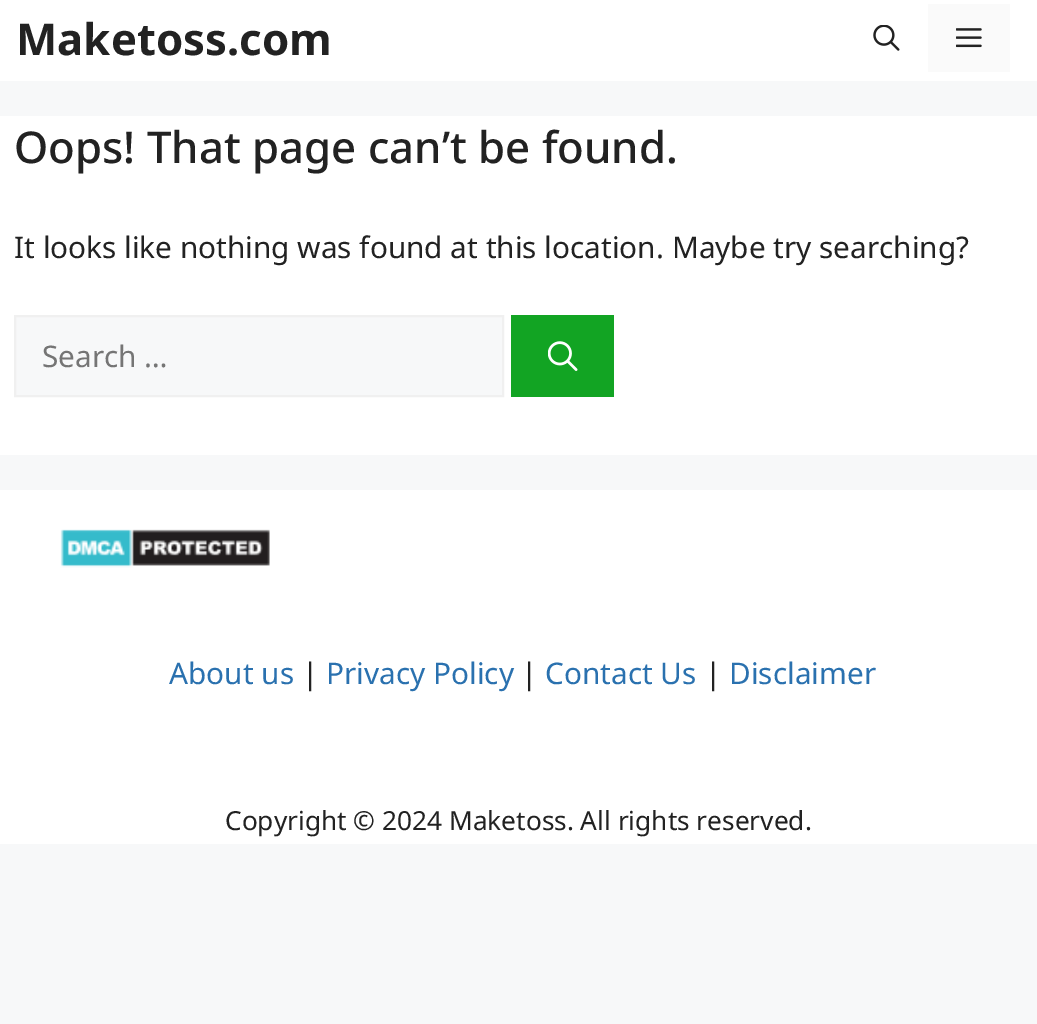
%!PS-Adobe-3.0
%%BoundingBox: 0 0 1037 1024
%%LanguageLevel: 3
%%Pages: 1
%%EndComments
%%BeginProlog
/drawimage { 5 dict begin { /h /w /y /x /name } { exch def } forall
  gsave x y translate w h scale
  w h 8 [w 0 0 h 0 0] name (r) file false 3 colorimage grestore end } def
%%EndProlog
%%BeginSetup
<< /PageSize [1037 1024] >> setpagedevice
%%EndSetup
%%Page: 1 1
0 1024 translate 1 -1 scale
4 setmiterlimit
0.969 0.973 0.976 setrgbcolor
0 0 1037 1024 rectfill
1 setgray
0 0 1037 81 rectfill
(images/1.raw) 873 25 27 26 drawimage
0.98 setgray
928 4 82 68 rectfill
(images/2.raw) 956 28 26 20 drawimage
1 setgray
0 116 1037 339 rectfill
0.969 0.973 0.976 setrgbcolor
newpath 15 316 moveto 503 316 lineto 503 396 lineto 15 396 lineto closepath gsave fill grestore
0.941 setgray
2 setlinewidth
stroke
0.071 0.643 0.137 setrgbcolor
511 315 103 82 rectfill
(images/3.raw) 548 341 30 30 drawimage
1 setgray
0 490 1037 354 rectfill
(images/4.raw) 60 529 210 39 drawimage
/NotoSans-Bold [43.75 0 0 -43.75 0 0] selectfont
0.133 setgray
16 55 moveto (Maketoss.com) show
/NotoSans-Medium [43.75 0 0 -43.75 0 0] selectfont
14 163 moveto (Oops! That page can’t be found.) show
/NotoSans-Regular [29.75 0 0 -29.75 0 0] selectfont
14 258 moveto (It looks like nothing was found at this location. Maybe try searching?) show
0.459 setgray
42 367 moveto (Search …) show
0.165 0.443 0.686 setrgbcolor
169 684 moveto (About us) show
0.133 setgray
302 684 moveto (|) show
0.165 0.443 0.686 setrgbcolor
326 684 moveto (Privacy Policy) show
0.133 setgray
521 684 moveto (|) show
0.165 0.443 0.686 setrgbcolor
545 684 moveto (Contact Us) show
0.133 setgray
705 684 moveto (|) show
0.165 0.443 0.686 setrgbcolor
729 684 moveto (Disclaimer) show
/NotoSans-Regular [26.25 0 0 -26.25 0 0] selectfont
0.133 setgray
225 830 moveto (Copyright © 2024 Maketoss. All rights reserved.) show
showpage
%%EOF
